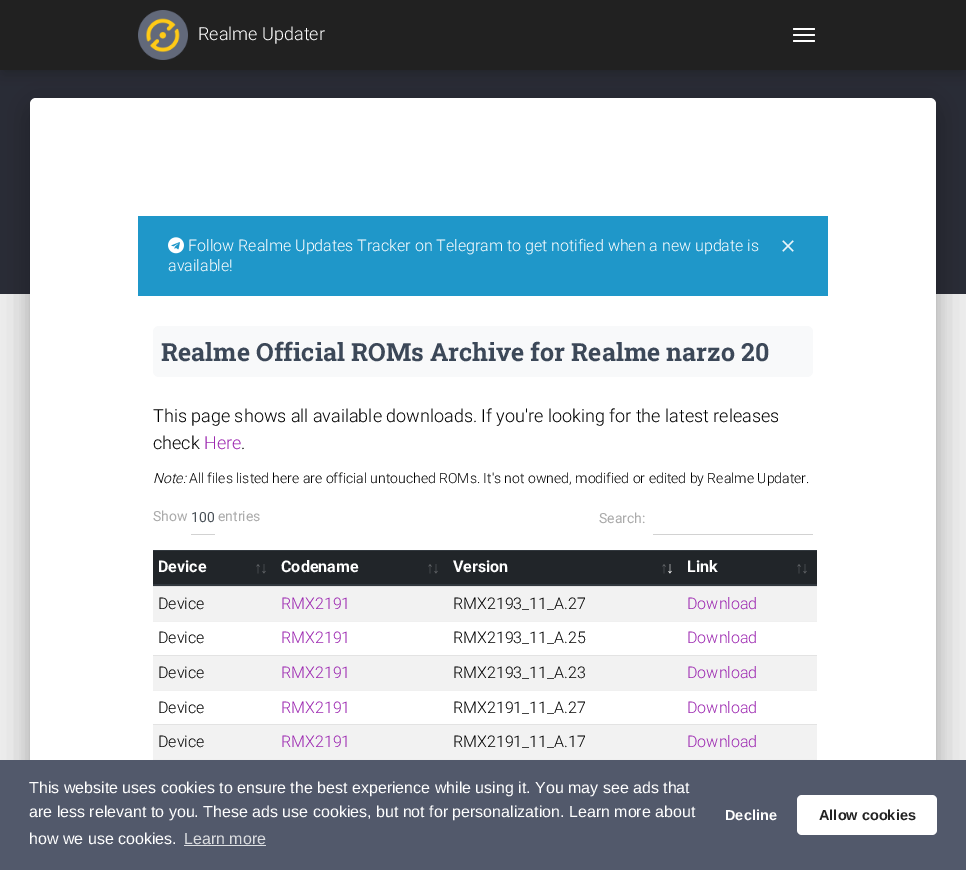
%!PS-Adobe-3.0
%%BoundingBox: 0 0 966 870
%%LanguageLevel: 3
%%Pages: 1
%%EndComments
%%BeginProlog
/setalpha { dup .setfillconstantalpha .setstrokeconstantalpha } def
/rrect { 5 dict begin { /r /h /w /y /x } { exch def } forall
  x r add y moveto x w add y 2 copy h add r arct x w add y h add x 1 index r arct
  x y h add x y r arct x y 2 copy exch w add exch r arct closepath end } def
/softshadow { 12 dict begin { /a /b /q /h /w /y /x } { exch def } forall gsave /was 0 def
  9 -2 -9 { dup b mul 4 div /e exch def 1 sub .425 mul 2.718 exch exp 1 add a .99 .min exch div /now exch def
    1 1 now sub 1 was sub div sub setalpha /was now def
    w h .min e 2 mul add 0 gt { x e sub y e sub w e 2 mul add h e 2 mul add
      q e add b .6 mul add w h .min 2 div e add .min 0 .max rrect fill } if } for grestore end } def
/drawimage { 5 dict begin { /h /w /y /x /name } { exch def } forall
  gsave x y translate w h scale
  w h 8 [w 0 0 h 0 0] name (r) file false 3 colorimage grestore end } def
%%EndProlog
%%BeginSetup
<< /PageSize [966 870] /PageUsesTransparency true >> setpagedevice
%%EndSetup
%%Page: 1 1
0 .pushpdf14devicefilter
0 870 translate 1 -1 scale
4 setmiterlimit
0.933 setgray
0 0 966 870 rectfill
0.161 0.173 0.212 setrgbcolor
0 70 966 224 rectfill
0.129 setgray
5 12 956 60 0 6 0.46 softshadow
0 setgray
35 111 896 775 1 5 0.2 softshadow
25 99 916 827 11 15 0.12 softshadow
28 112 910 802 8 12 0.14 softshadow
1 setgray
30 98 906 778 6 rrect fill
0 setgray
0 4 966 70 0 10 0.14 softshadow
0.129 setgray
0 0 966 70 rectfill
(images/1.raw) 138 10 50 50 drawimage
1 setgray
793 28 22 2 1 rrect fill
793 34 22 2 1 rrect fill
793 40 22 2 1 rrect fill
0.122 0.592 0.788 setrgbcolor
138 216 690 80 rectfill
(images/2.raw) 168 237 16 17 drawimage
(images/3.raw) 782 240 12 12 drawimage
0.973 0.976 0.98 setrgbcolor
153 326 660 51 6 rrect fill
0.824 setgray
191 534 24 1 rectfill
653 534 160 1 rectfill
0.129 0.145 0.161 setrgbcolor
153 551 664 33 rectfill
0.196 0.22 0.243 setrgbcolor
153 550 664 1 rectfill
153 584 664 2 rectfill
0.949 setgray
153 587 664 34 rectfill
0.89 setgray
153 586 664 1 rectfill
0.941 setgray
153 621 664 1 rectfill
0.949 setgray
153 656 664 34 rectfill
0.89 setgray
153 655 664 1 rectfill
0.941 setgray
153 690 664 1 rectfill
0.949 setgray
153 725 664 34 rectfill
0.89 setgray
153 724 664 1 rectfill
0.941 setgray
153 759 664 1 rectfill
0.322 0.349 0.42 setrgbcolor
0 760 966 110 rectfill
0.863 0.871 0.882 setrgbcolor
184 845 82 1 rectfill
1 setgray
797 795 140 40 5 rrect fill
/Roboto-Light [18 0 0 -18 0 0] selectfont
198 40 moveto (Realme Updater) show
/Roboto-Light [16 0 0 -16 0 0] selectfont
188 251 moveto (Follow Realme Updates Tracker on Telegram to get notified when a new update is) show
168 271 moveto (available!) show
/RobotoSlab-Bold [25 0 0 -25 0 0] selectfont
0.235 0.282 0.345 setrgbcolor
161 361 moveto (Realme Official ROMs Archive for Realme narzo 20) show
/Roboto-Light [18 0 0 -18 0 0] selectfont
0 setgray
153 422 moveto (This page shows all available downloads. If you're looking for the latest releases) show
153 449 moveto (check) show
0.612 0.153 0.69 setrgbcolor
204 449 moveto (Here) show
0 setgray
241 449 moveto (.) show
/Roboto-LightItalic [14 0 0 -14 0 0] selectfont
153 483 moveto (Note:) show
/Roboto-Light [14 0 0 -14 0 0] selectfont
189 483 moveto (All files listed here are official untouched ROMs. It's not owned, modified or edited by Realme Updater.) show
/Roboto-Regular [14 0 0 -14 0 0] selectfont
0.667 setgray
153 521 moveto (Show) show
0.286 0.314 0.341 setrgbcolor
191 522 moveto (100) show
0.667 setgray
218 521 moveto (entries) show
599 523 moveto (Search:) show
/Roboto-Bold [16 0 0 -16 0 0] selectfont
1 setgray
158 572 moveto (Device) show
/LiberationSans-Bold [16 0 0 -16 0 0] selectfont
0.384 0.396 0.408 setrgbcolor
254 573 moveto (↑) show
260 573 moveto (↓) show
/Roboto-Bold [16 0 0 -16 0 0] selectfont
1 setgray
281 572 moveto (Codename) show
/LiberationSans-Bold [16 0 0 -16 0 0] selectfont
0.384 0.396 0.408 setrgbcolor
426 573 moveto (↑) show
432 573 moveto (↓) show
/Roboto-Bold [16 0 0 -16 0 0] selectfont
1 setgray
453 572 moveto (Version) show
/LiberationSans-Bold [16 0 0 -16 0 0] selectfont
0.384 0.396 0.408 setrgbcolor
660 573 moveto (↑) show
1 setgray
666 573 moveto (↓) show
/Roboto-Bold [16 0 0 -16 0 0] selectfont
687 572 moveto (Link) show
/LiberationSans-Bold [16 0 0 -16 0 0] selectfont
0.384 0.396 0.408 setrgbcolor
795 573 moveto (↑) show
801 573 moveto (↓) show
/Roboto-Light [16 0 0 -16 0 0] selectfont
0 setgray
158 609 moveto (Device) show
0.612 0.153 0.69 setrgbcolor
281 609 moveto (RMX2191) show
0 setgray
453 609 moveto (RMX2193_11_A.27) show
0.612 0.153 0.69 setrgbcolor
687 609 moveto (Download) show
0 setgray
158 643 moveto (Device) show
0.612 0.153 0.69 setrgbcolor
281 643 moveto (RMX2191) show
0 setgray
453 643 moveto (RMX2193_11_A.25) show
0.612 0.153 0.69 setrgbcolor
687 643 moveto (Download) show
0 setgray
158 678 moveto (Device) show
0.612 0.153 0.69 setrgbcolor
281 678 moveto (RMX2191) show
0 setgray
453 678 moveto (RMX2193_11_A.23) show
0.612 0.153 0.69 setrgbcolor
687 678 moveto (Download) show
0 setgray
158 713 moveto (Device) show
0.612 0.153 0.69 setrgbcolor
281 713 moveto (RMX2191) show
0 setgray
453 713 moveto (RMX2191_11_A.27) show
0.612 0.153 0.69 setrgbcolor
687 713 moveto (Download) show
0 setgray
158 747 moveto (Device) show
0.612 0.153 0.69 setrgbcolor
281 747 moveto (RMX2191) show
0 setgray
453 747 moveto (RMX2191_11_A.17) show
0.612 0.153 0.69 setrgbcolor
687 747 moveto (Download) show
/LiberationSans-Regular [16 0 0 -16 0 0] selectfont
1 setgray
29 793 moveto (This website uses cookies to ensure the best experience while using it. You may see ads that) show
29 817 moveto (are less relevant to you. These ads use cookies, but not for personalization. Learn more about) show
29 844 moveto (how we use cookies.) show
0.863 0.871 0.882 setrgbcolor
184 844 moveto (Learn more) show
/LiberationSans-Bold [14.5 0 0 -14.5 0 0] selectfont
1 setgray
725 820 moveto (Decline) show
0.133 setgray
819 820 moveto (Allow cookies) show
.poppdf14devicefilter showpage
%%EOF
